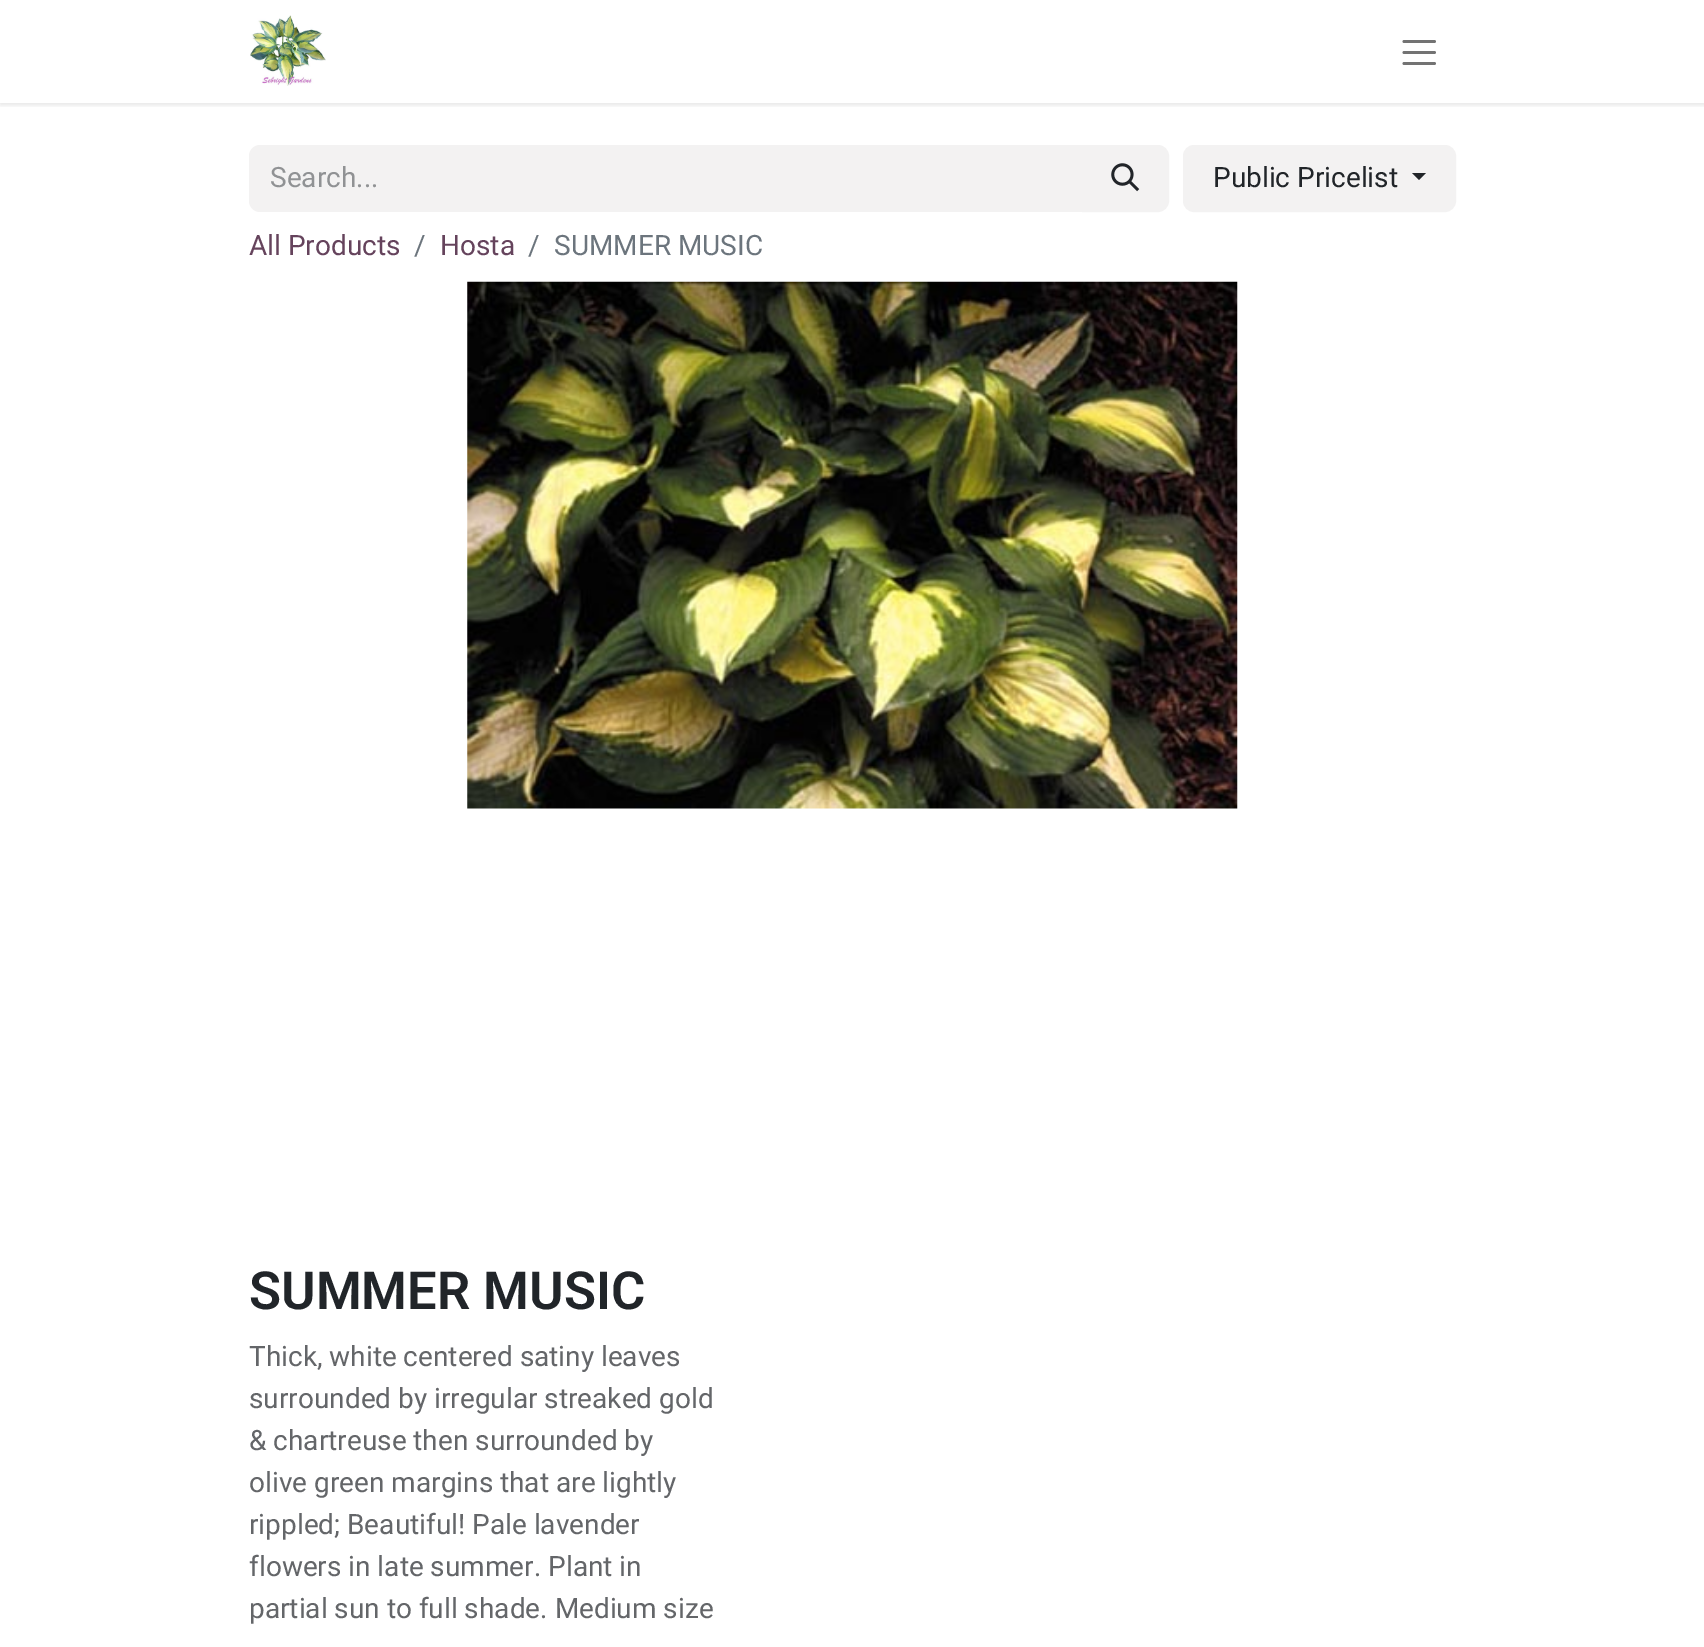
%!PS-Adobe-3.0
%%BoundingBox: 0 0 1704 1647
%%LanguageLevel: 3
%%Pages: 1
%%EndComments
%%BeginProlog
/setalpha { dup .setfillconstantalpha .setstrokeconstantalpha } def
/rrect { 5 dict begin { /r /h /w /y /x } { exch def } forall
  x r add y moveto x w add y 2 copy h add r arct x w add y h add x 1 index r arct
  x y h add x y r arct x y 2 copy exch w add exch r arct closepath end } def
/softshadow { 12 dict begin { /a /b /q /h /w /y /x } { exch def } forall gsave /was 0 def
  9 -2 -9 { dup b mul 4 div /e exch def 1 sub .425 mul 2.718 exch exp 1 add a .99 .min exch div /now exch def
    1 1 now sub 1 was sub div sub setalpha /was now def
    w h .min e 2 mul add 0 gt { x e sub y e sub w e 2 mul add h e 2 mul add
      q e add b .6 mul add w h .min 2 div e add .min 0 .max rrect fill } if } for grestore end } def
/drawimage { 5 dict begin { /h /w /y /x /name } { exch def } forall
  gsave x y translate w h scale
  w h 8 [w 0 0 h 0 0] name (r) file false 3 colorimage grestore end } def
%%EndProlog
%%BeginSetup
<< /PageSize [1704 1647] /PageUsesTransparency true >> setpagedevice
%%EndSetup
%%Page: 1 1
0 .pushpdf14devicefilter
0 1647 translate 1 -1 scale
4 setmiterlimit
1 setgray
0 0 1704 1647 rectfill
gsave
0 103 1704 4 rectclip
0 setgray
0 2 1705 103 0 2.5 0.1 softshadow
grestore
(images/1.raw) 250 15 76 71 drawimage
0.451 setgray
2.8 setlinewidth
1 setlinecap
newpath 1404 41.5 moveto 1434.5 41.5 lineto 1404 52.5 moveto 1434.5 52.5 lineto 1404 63.5 moveto 1434.5 63.5 lineto stroke
0.953 0.949 0.949 setrgbcolor
newpath 260 145 moveto 1083 145 lineto 1083 212 lineto 260 212 lineto 254 212 249 207 249 201 curveto 249 156 lineto 249 150 254 145 260 145 curveto closepath fill
newpath 1083 146 moveto 1158 146 lineto 1163.5 146 1168 150.5 1168 156 curveto 1168 201 lineto 1168 206.5 1163.5 211 1158 211 curveto 1083 211 lineto closepath gsave fill grestore
2 setlinewidth
0 setlinecap
stroke
(images/2.raw) 1111 163 29 29 drawimage
1184 146 271 65 10 rrect gsave fill grestore
stroke
0.129 0.145 0.161 setrgbcolor
newpath 1412 173 moveto 1426 173 lineto 1419 180 lineto closepath fill
(images/3.raw) 467 281 771 528 drawimage
/Roboto-Regular [28 0 0 -28 0 0] selectfont
0.565 0.573 0.58 setrgbcolor
270 187 moveto (Search...) show
0.129 0.145 0.161 setrgbcolor
1213 187 moveto (Public Pricelist) show
0.396 0.263 0.361 setrgbcolor
249 255 moveto (All Products) show
0.424 0.459 0.49 setrgbcolor
414 255 moveto (/) show
0.396 0.263 0.361 setrgbcolor
440 255 moveto (Hosta) show
0.424 0.459 0.49 setrgbcolor
528 255 moveto (/) show
554 255 moveto (SUMMER MUSIC) show
/Roboto-SemiBold [52.5 0 0 -52.5 0 0] selectfont
0.129 0.145 0.161 setrgbcolor
249 1309 moveto (SUMMER MUSIC) show
/Roboto-Regular [28 0 0 -28 0 0] selectfont
0.392 0.4 0.412 setrgbcolor
249 1366 moveto (Thick, white centered satiny leaves) show
249 1408 moveto (surrounded by irregular streaked gold) show
249 1450 moveto (& chartreuse then surrounded by) show
249 1492 moveto (olive green margins that are lightly) show
249 1534 moveto (rippled; Beautiful! Pale lavender) show
249 1576 moveto (flowers in late summer. Plant in) show
249 1618 moveto (partial sun to full shade. Medium size) show
.poppdf14devicefilter showpage
%%EOF
